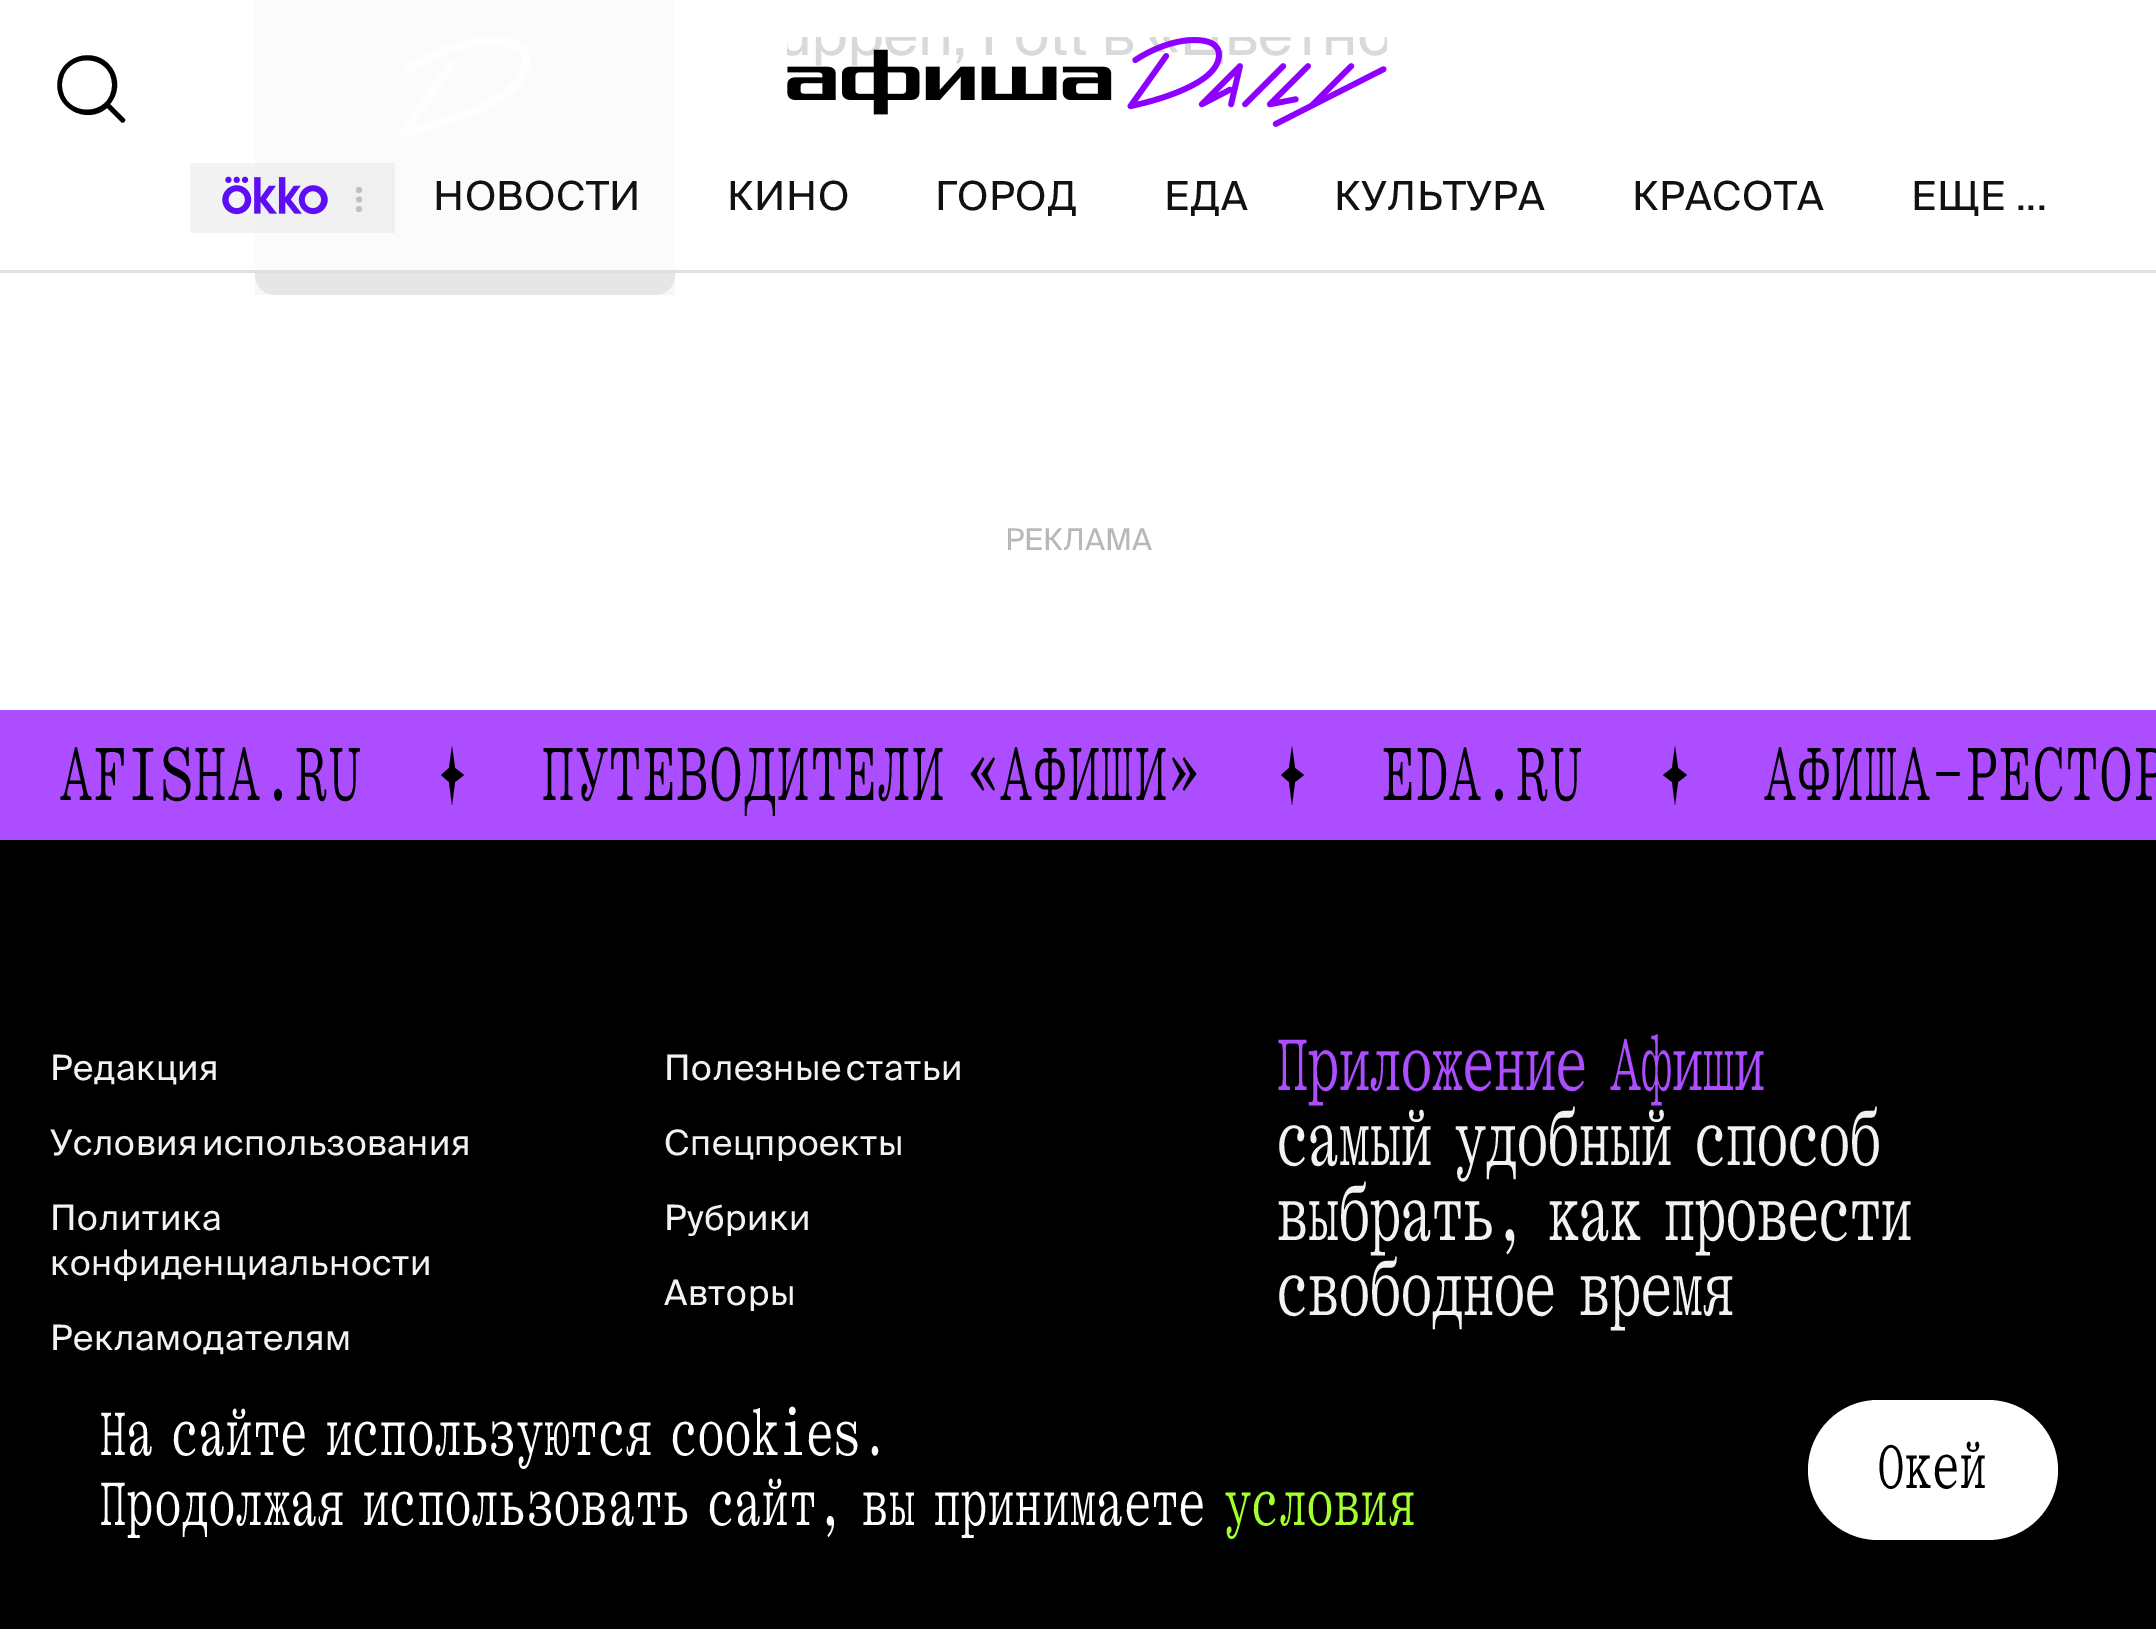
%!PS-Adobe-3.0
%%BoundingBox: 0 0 2156 1629
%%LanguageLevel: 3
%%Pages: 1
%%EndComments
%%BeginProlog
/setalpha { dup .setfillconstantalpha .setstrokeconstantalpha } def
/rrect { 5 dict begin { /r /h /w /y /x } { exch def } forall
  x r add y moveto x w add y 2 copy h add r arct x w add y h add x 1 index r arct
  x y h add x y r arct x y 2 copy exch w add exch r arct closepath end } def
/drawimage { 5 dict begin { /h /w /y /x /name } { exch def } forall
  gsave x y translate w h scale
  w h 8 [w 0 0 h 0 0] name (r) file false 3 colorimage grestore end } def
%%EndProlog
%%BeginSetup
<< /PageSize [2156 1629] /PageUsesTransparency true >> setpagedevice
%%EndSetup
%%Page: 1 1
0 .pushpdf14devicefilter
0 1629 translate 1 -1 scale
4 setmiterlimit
1 setgray
0 0 2156 1629 rectfill
0.929 setgray
255 -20 420 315 20 rrect fill
(images/3.raw) 398 37 132 100 drawimage
0.03 setalpha
0 setgray
255 0 420 295 rectfill
0.85 setalpha
1 setgray
255 0 420 270 rectfill
1 setalpha
(images/1.raw) 787 37 600 90 drawimage
0.878 setgray
0 270 2156 3 rectfill
0 setgray
newpath 112 85 moveto 112 118 62 118 62 85 curveto 62 52 112 52 112 85 curveto 107 108 moveto 86 126 52 107 58 79 curveto 59 73 62 68 66 64 curveto 70 60 76 57 81 56 curveto 110 50 128 83 110 104 curveto 125 119 lineto 126 121 123 124 121 122 curveto closepath eofill
0.05 setalpha
0.102 setgray
190 163 205 70 rectfill
1 setalpha
(images/2.raw) 222 176 106 39 drawimage
0.749 setgray
newpath 359 190 3 0 360 arc closepath fill
newpath 359 199.5 3 0 360 arc closepath fill
newpath 359 209 3 0 360 arc closepath fill
0.675 0.302 1 setrgbcolor
0 710 2156 130 rectfill
0 setgray
newpath 441 775 moveto 449 768 lineto 452 746 lineto 455 768 lineto 464 775 lineto 455 782 lineto 452 805 lineto 449 782 lineto closepath fill
newpath 1281 775 moveto 1289 768 lineto 1292 746 lineto 1295 768 lineto 1304 775 lineto 1295 782 lineto 1292 805 lineto 1289 782 lineto closepath fill
newpath 1663 775 moveto 1672 768 lineto 1675 746 lineto 1678 768 lineto 1687 775 lineto 1678 782 lineto 1675 805 lineto 1672 782 lineto closepath fill
0 840 2156 789 rectfill
1 setgray
1808 1400 250 140 70 rrect fill
/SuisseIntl-Regular [40 0 0 -40 0 0] selectfont
0.067 setgray
433 210 moveto 0.5 0 (НОВОСТИ) ashow
727 210 moveto 0.5 0 (КИНО) ashow
935 210 moveto 0.5 0 (ГОРОД) ashow
1164 210 moveto 0.5 0 (ЕДА) ashow
1334 210 moveto 0.5 0 (КУЛЬТУРА) ashow
1632 210 moveto 0.5 0 (КРАСОТА) ashow
1911 210 moveto 0.5 0 (ЕЩЕ ...) ashow
/SuisseIntl-Regular [30 0 0 -30 0 0] selectfont
0.722 setgray
1005 550 moveto (РЕКЛАМА) show
/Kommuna-Regular [80 0 0 -80 0 0] selectfont
0 setgray
60 800 moveto 1.6 0 (AFISHA.RU) ashow
542 800 moveto -12 0 32 1.6 0 (ПУТЕВОДИТЕЛИ «АФИШИ») awidthshow
1382 800 moveto 1.6 0 (EDA.RU) ashow
1764 800 moveto 1.6 0 (АФИША-РЕСТОР) ashow
/SuisseIntl-Regular [35 0 0 -35 0 0] selectfont
0.949 setgray
50 1080 moveto 0.7 0 (Редакция) ashow
50 1155 moveto -5 0 32 0.7 0 (Условия использования) awidthshow
50 1230 moveto 0.7 0 (Политика) ashow
50 1275 moveto 0.7 0 (конфиденциальности) ashow
50 1350 moveto 0.7 0 (Рекламодателям) ashow
664 1080 moveto -5 0 32 0.7 0 (Полезные статьи) awidthshow
664 1155 moveto 0.7 0 (Спецпроекты) ashow
664 1230 moveto 0.7 0 (Рубрики) ashow
664 1305 moveto 0.7 0 (Авторы) ashow
/Kommuna-Regular [77.5 0 0 -77.5 0 0] selectfont
0.675 0.302 1 setrgbcolor
1277 1090 moveto -8 0 32 (Приложение Афиши) widthshow
0.949 setgray
1277 1165 moveto -8 0 32 (самый удобный способ) widthshow
1277 1240 moveto -8 0 32 (выбрать, как провести) widthshow
1277 1315 moveto -8 0 32 (свободное время) widthshow
/Kommuna-Regular [65 0 0 -65 0 0] selectfont
1 setgray
100 1455 moveto -10 0 32 1.3 0 (На сайте используются cookies.) awidthshow
100 1525 moveto -10 0 32 1.3 0 (Продолжая использовать сайт, вы принимаете) awidthshow
0.643 1 0.188 setrgbcolor
1225 1525 moveto 1.3 0 (условия) ashow
0 setgray
1878 1488 moveto 1.3 0 (Окей) ashow
.poppdf14devicefilter showpage
%%EOF
